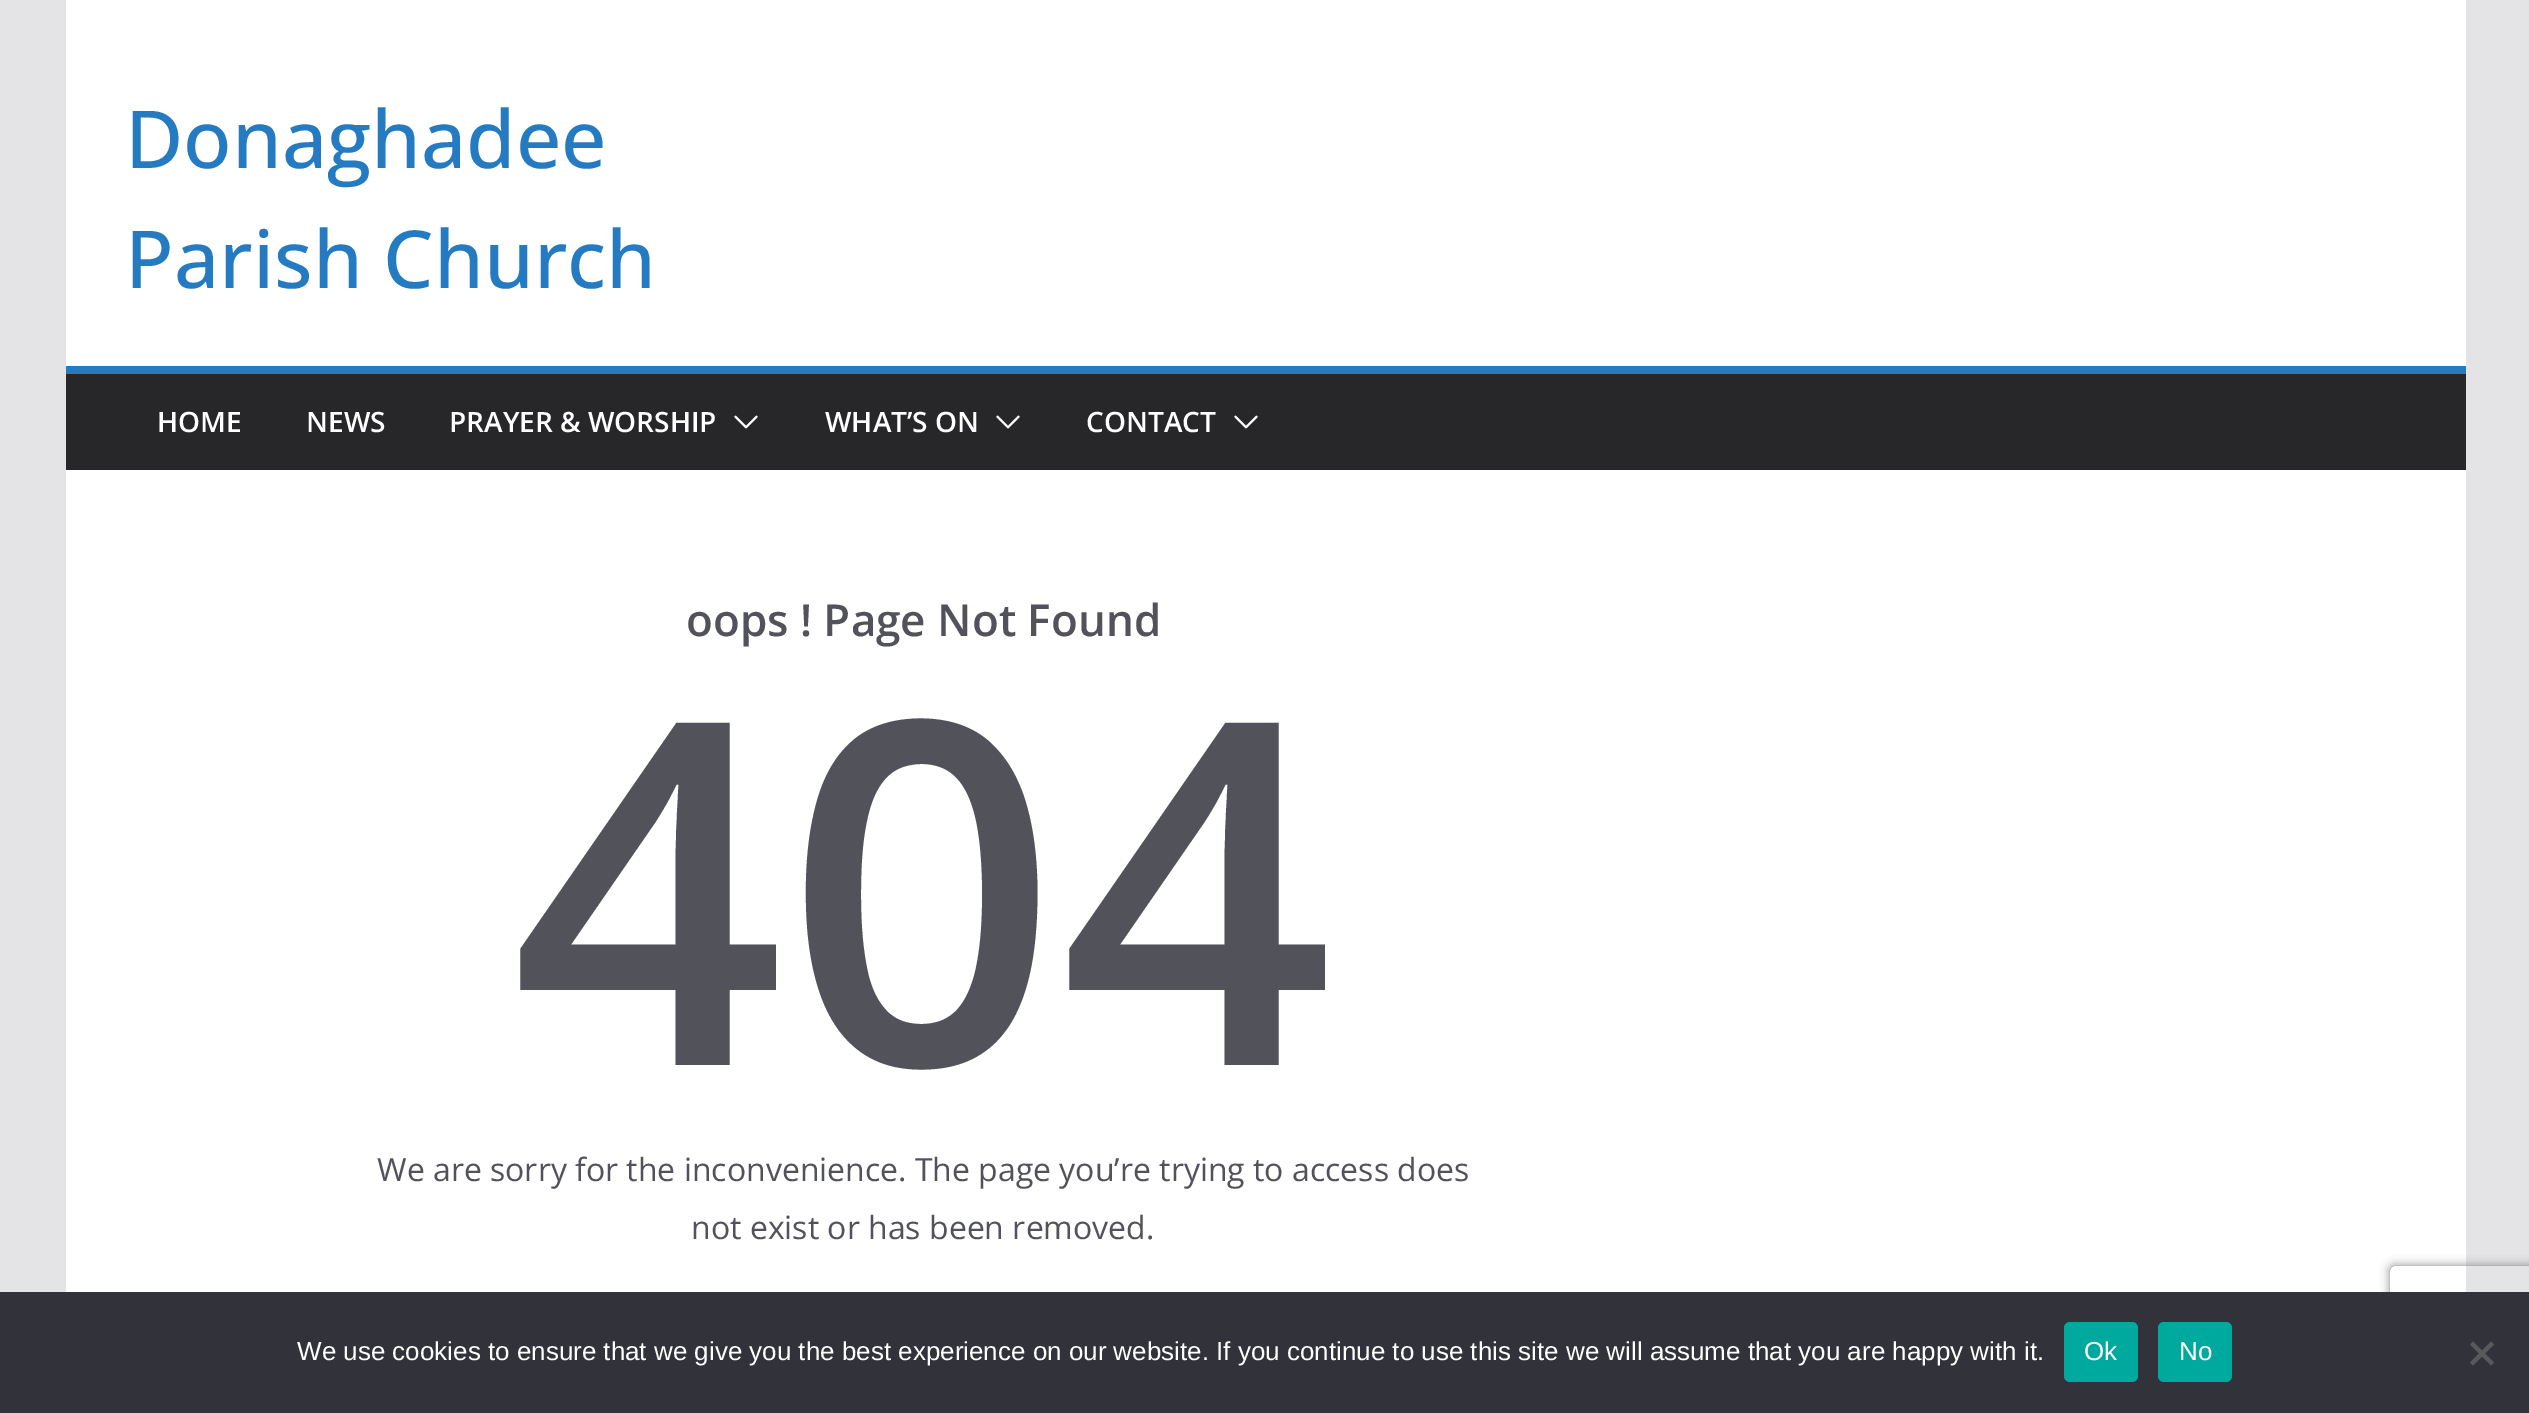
%!PS-Adobe-3.0
%%BoundingBox: 0 0 2529 1413
%%LanguageLevel: 3
%%Pages: 1
%%EndComments
%%BeginProlog
/setalpha { dup .setfillconstantalpha .setstrokeconstantalpha } def
/rrect { 5 dict begin { /r /h /w /y /x } { exch def } forall
  x r add y moveto x w add y 2 copy h add r arct x w add y h add x 1 index r arct
  x y h add x y r arct x y 2 copy exch w add exch r arct closepath end } def
/softshadow { 12 dict begin { /a /b /q /h /w /y /x } { exch def } forall gsave /was 0 def
  9 -2 -9 { dup b mul 4 div /e exch def 1 sub .425 mul 2.718 exch exp 1 add a .99 .min exch div /now exch def
    1 1 now sub 1 was sub div sub setalpha /was now def
    w h .min e 2 mul add 0 gt { x e sub y e sub w e 2 mul add h e 2 mul add
      q e add b .6 mul add w h .min 2 div e add .min 0 .max rrect fill } if } for grestore end } def
/drawimage { 5 dict begin { /h /w /y /x /name } { exch def } forall
  gsave x y translate w h scale
  w h 8 [w 0 0 h 0 0] name (r) file false 3 colorimage grestore end } def
%%EndProlog
%%BeginSetup
<< /PageSize [2529 1413] /PageUsesTransparency true >> setpagedevice
%%EndSetup
%%Page: 1 1
0 .pushpdf14devicefilter
0 1413 translate 1 -1 scale
4 setmiterlimit
0.894 0.894 0.906 setrgbcolor
0 0 2529 1413 rectfill
1 setgray
66 0 2400 366 rectfill
0.153 0.153 0.165 setrgbcolor
66 374 2400 96 rectfill
0.145 0.482 0.757 setrgbcolor
66 366 2400 8 rectfill
(images/1.raw) 734 415 24 14 drawimage
(images/1.raw) 996 415 24 14 drawimage
(images/1.raw) 1234 415 24 14 drawimage
1 setgray
66 470 2400 822 rectfill
gsave
newpath 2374 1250 moveto 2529 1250 lineto 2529 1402 lineto 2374 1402 lineto closepath 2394 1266 moveto 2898 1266 lineto 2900 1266 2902 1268 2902 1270 curveto 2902 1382 lineto 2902 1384 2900 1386 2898 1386 curveto 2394 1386 lineto 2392 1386 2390 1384 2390 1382 curveto 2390 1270 lineto 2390 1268 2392 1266 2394 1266 curveto closepath eoclip newpath
0.502 setgray
2390 1266 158 120 4 5 1 softshadow
grestore
0.196 0.196 0.227 setrgbcolor
0 1292 2529 121 rectfill
0 0.663 0.616 setrgbcolor
2064 1322 74 60 6 rrect fill
2158 1322 74 60 6 rrect fill
0.349 0.349 0.365 setrgbcolor
newpath 2491 1341.5 moveto 2494 1344.5 lineto 2473 1365.5 lineto 2470 1362.5 lineto closepath fill
newpath 2470 1344.5 moveto 2473 1341.5 lineto 2494 1362.5 lineto 2491 1365.5 lineto closepath fill
/OpenSans-Medium [80 0 0 -80 0 0] selectfont
0.145 0.482 0.757 setrgbcolor
125 168 moveto (Donaghadee) show
125 288 moveto (Parish Church) show
/OpenSans-SemiBold [28 0 0 -28 0 0] selectfont
1 setgray
157 432 moveto (HOME) show
306 432 moveto (NEWS) show
449 432 moveto (PRAYER & WORSHIP) show
825 432 moveto (WHAT’S ON) show
1086 432 moveto (CONTACT) show
/OpenSans-SemiBold [44 0 0 -44 0 0] selectfont
0.322 0.322 0.357 setrgbcolor
686 636 moveto (oops ! Page Not Found) show
/OpenSans-SemiBold [480 0 0 -480 0 0] selectfont
511 1065 moveto (404) show
/OpenSans-Regular [32 0 0 -32 0 0] selectfont
377 1181 moveto (We are sorry for the inconvenience. The page you’re trying to access does) show
691 1239 moveto (not exist or has been removed.) show
/LiberationSans-Regular [26 0 0 -26 0 0] selectfont
1 setgray
297 1360 moveto (We use cookies to ensure that we give you the best experience on our website. If you continue to use this site we will assume that you are happy with it.) show
2084 1360 moveto (Ok) show
2179 1360 moveto (No) show
.poppdf14devicefilter showpage
%%EOF
